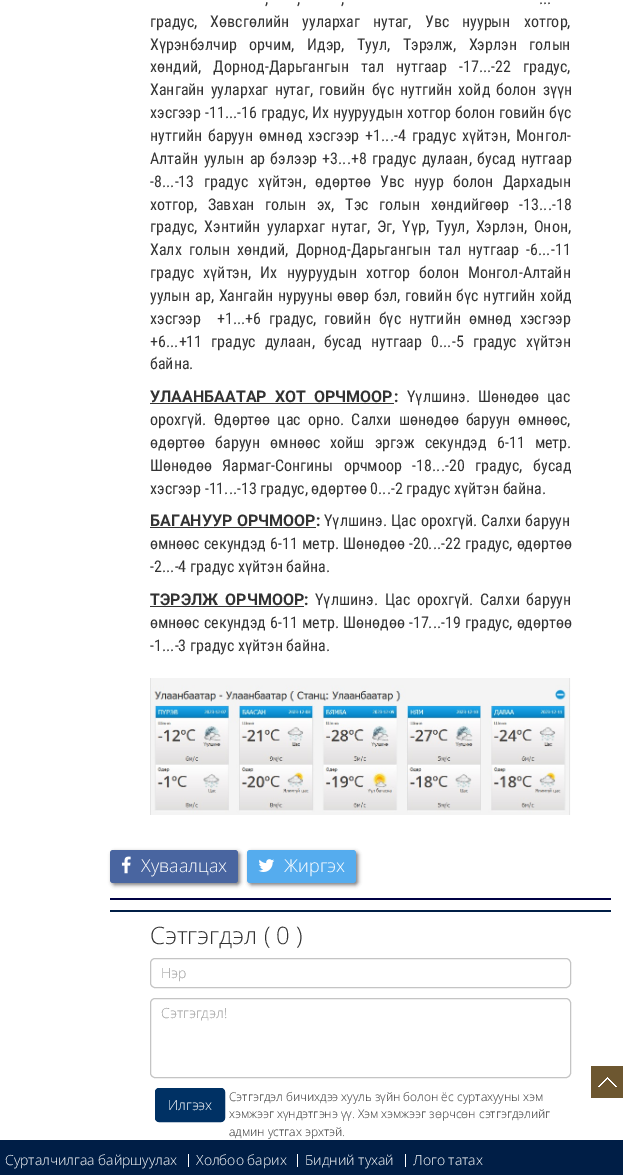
%!PS-Adobe-3.0
%%BoundingBox: 0 0 623 1175
%%LanguageLevel: 3
%%Pages: 1
%%EndComments
%%BeginProlog
/setalpha { dup .setfillconstantalpha .setstrokeconstantalpha } def
/rrect { 5 dict begin { /r /h /w /y /x } { exch def } forall
  x r add y moveto x w add y 2 copy h add r arct x w add y h add x 1 index r arct
  x y h add x y r arct x y 2 copy exch w add exch r arct closepath end } def
/softshadow { 12 dict begin { /a /b /q /h /w /y /x } { exch def } forall gsave /was 0 def
  9 -2 -9 { dup b mul 4 div /e exch def 1 sub .425 mul 2.718 exch exp 1 add a .99 .min exch div /now exch def
    1 1 now sub 1 was sub div sub setalpha /was now def
    w h .min e 2 mul add 0 gt { x e sub y e sub w e 2 mul add h e 2 mul add
      q e add b .6 mul add w h .min 2 div e add .min 0 .max rrect fill } if } for grestore end } def
/drawimage { 5 dict begin { /h /w /y /x /name } { exch def } forall
  gsave x y translate w h scale
  w h 8 [w 0 0 h 0 0] name (r) file false 3 colorimage grestore end } def
%%EndProlog
%%BeginSetup
<< /PageSize [623 1175] /PageUsesTransparency true >> setpagedevice
%%EndSetup
%%Page: 1 1
0 .pushpdf14devicefilter
0 1175 translate 1 -1 scale
4 setmiterlimit
1 setgray
0 0 623 1175 rectfill
0.2 setgray
150 403 244 1 rectfill
150 527 166 1 rectfill
150 606 154 1 rectfill
(images/1.raw) 150 678 421 137 drawimage
0 0.004 0.267 setrgbcolor
110 898 501 2 rectfill
0.49 0.486 0.49 setrgbcolor
112 852 128 33 3 2 1 softshadow
0.286 0.396 0.627 setrgbcolor
110 850 128 33 3 rrect fill
(images/2.raw) 121 856 10 18 drawimage
0.49 0.486 0.49 setrgbcolor
249 852 109 33 3 2 1 softshadow
0.333 0.675 0.933 setrgbcolor
247 850 109 33 3 rrect fill
(images/3.raw) 258 859 17 13 drawimage
0 0.118 0.275 setrgbcolor
110 910 501 2 rectfill
0.769 setgray
150.5 958.5 420 29 4.5 rrect stroke
150.5 998.5 420 79 4.5 rrect stroke
0 0.192 0.392 setrgbcolor
155.5 1088.5 69 33 3.5 rrect gsave fill grestore
stroke
0 0.118 0.275 setrgbcolor
0 1140 623 35 rectfill
1 setgray
188 1154 1 13 rectfill
297 1154 1 13 rectfill
405 1154 1 13 rectfill
0.427 0.341 0.188 setrgbcolor
591 1066 32 32 rectfill
(images/4.raw) 598 1077 19 10 drawimage
/RobotoCondensed-Regular [16 0 0 -16 0 0] selectfont
0.2 setgray
265 4 moveto 2.5 0 32 (,) widthshow
297 4 moveto 2.5 0 32 (,) widthshow
341 4 moveto 2.5 0 32 (,) widthshow
539 4 moveto 2.5 0 32 (...) widthshow
150 27 moveto 9.5 0 32 (градус, Хөвсгөлийн уулархаг нутаг, Увс нуурын хотгор,) widthshow
150 50 moveto 9 0 32 (Хүрэнбэлчир орчим, Идэр, Туул, Тэрэлж, Хэрлэн голын) widthshow
150 72 moveto 8.5 0 32 (хөндий, Дорнод-Дарьгангын тал нутгаар -17...-22 градус,) widthshow
150 95 moveto 2.5 0 32 (Хангайн уулархаг нутаг, говийн бүс нутгийн хойд болон зүүн) widthshow
150 118 moveto 0.25 0 32 (хэсгээр -11...-16 градус, Их нууруудын хотгор болон говийн бүс) widthshow
150 141 moveto 2.5 0 32 (нутгийн баруун өмнөд хэсгээр +1...-4 градус хүйтэн, Монгол-) widthshow
150 164 moveto 1.75 0 32 (Алтайн уулын ар бэлээр +3...+8 градус дулаан, бусад нутгаар) widthshow
150 187 moveto 6 0 32 (-8...-13 градус хүйтэн, өдөртөө Увс нуур болон Дархадын) widthshow
150 210 moveto 7 0 32 (хотгор, Завхан голын эх, Тэс голын хөндийгөөр -13...-18) widthshow
150 232 moveto 3.25 0 32 (градус, Хэнтийн уулархаг нутаг, Эг, Үүр, Туул, Хэрлэн, Онон,) widthshow
150 255 moveto 3.5 0 32 (Халх голын хөндий, Дорнод-Дарьгангын тал нутгаар -6...-11) widthshow
150 278 moveto 5.5 0 32 (градус хүйтэн, Их нууруудын хотгор болон Монгол-Алтайн) widthshow
150 301 moveto 1 0 32 (уулын ар, Хангайн нурууны өвөр бэл, говийн бүс нутгийн хойд) widthshow
150 324 moveto 4.25 0 32 (хэсгээр  +1...+6 градус, говийн бүс нутгийн өмнөд хэсгээр) widthshow
150 347 moveto 5.5 0 32 (+6...+11 градус дулаан, бусад нутгаар 0...-5 градус хүйтэн) widthshow
150 369 moveto (байна.) show
/Roboto-Bold [16 0 0 -16 0 0] selectfont
150 402 moveto 4 0 32 (УЛААНБААТАР ХОТ ОРЧМООР) widthshow
394 402 moveto (:) show
/RobotoCondensed-Regular [16 0 0 -16 0 0] selectfont
407 402 moveto 4 0 32 (Үүлшинэ. Шөнөдөө цас) widthshow
150 425 moveto 3.5 0 32 (орохгүй. Өдөртөө цас орно. Салхи шөнөдөө баруун өмнөөс,) widthshow
150 448 moveto 6.5 0 32 (өдөртөө баруун өмнөөс хойш эргэж секундэд 6-11 метр.) widthshow
150 471 moveto 7 0 32 (Шөнөдөө Яармаг-Сонгины орчмоор -18...-20 градус, бусад) widthshow
150 494 moveto (хэсгээр -11...-13 градус, өдөртөө 0...-2 градус хүйтэн байна.) show
/Roboto-Bold [16 0 0 -16 0 0] selectfont
150 526 moveto 0.5 0 32 (БАГАНУУР ОРЧМООР) widthshow
316 526 moveto (:) show
/RobotoCondensed-Regular [16 0 0 -16 0 0] selectfont
324 526 moveto 0.5 0 32 (Үүлшинэ. Цас орохгүй. Салхи баруун) widthshow
150 549 moveto 0.5 0 32 (өмнөөс секундэд 6-11 метр. Шөнөдөө -20...-22 градус, өдөртөө) widthshow
150 572 moveto (-2...-4 градус хүйтэн байна.) show
/Roboto-Bold [16 0 0 -16 0 0] selectfont
150 605 moveto 3 0 32 (ТЭРЭЛЖ ОРЧМООР) widthshow
304 605 moveto (:) show
/RobotoCondensed-Regular [16 0 0 -16 0 0] selectfont
315 605 moveto 3 0 32 (Үүлшинэ. Цас орохгүй. Салхи баруун) widthshow
150 628 moveto 0.5 0 32 (өмнөөс секундэд 6-11 метр. Шөнөдөө -17...-19 градус, өдөртөө) widthshow
150 651 moveto (-1...-3 градус хүйтэн байна.) show
/OpenSans-Light [18 0 0 -18 0 0] selectfont
1 setgray
141 872 moveto (Хуваалцах) show
284 872 moveto (Жиргэх) show
/OpenSans-Light [24 0 0 -24 0 0] selectfont
0.2 setgray
150 944 moveto (Сэтгэгдэл \( 0 \)) show
/OpenSans-Light [14 0 0 -14 0 0] selectfont
0.6 setgray
161 978 moveto (Нэр) show
161 1018 moveto (Сэтгэгдэл!) show
1 setgray
168 1110 moveto (Илгээх) show
/OpenSans-Light [12 0 0 -12 0 0] selectfont
0.2 setgray
229 1101 moveto (Сэтгэгдэл бичихдээ хууль зүйн болон ёс суртахууны хэм) show
229 1118 moveto (хэмжээг хүндэтгэнэ үү. Хэм хэмжээг зөрчсөн сэтгэгдэлийг) show
229 1136 moveto (админ устгах эрхтэй.) show
/OpenSans-Light [14 0 0 -14 0 0] selectfont
1 setgray
5 1165 moveto (Сурталчилгаа байршуулах) show
196 1165 moveto (Холбоо барих) show
305 1165 moveto (Бидний тухай) show
413 1165 moveto (Лого татах) show
.poppdf14devicefilter showpage
%%EOF
